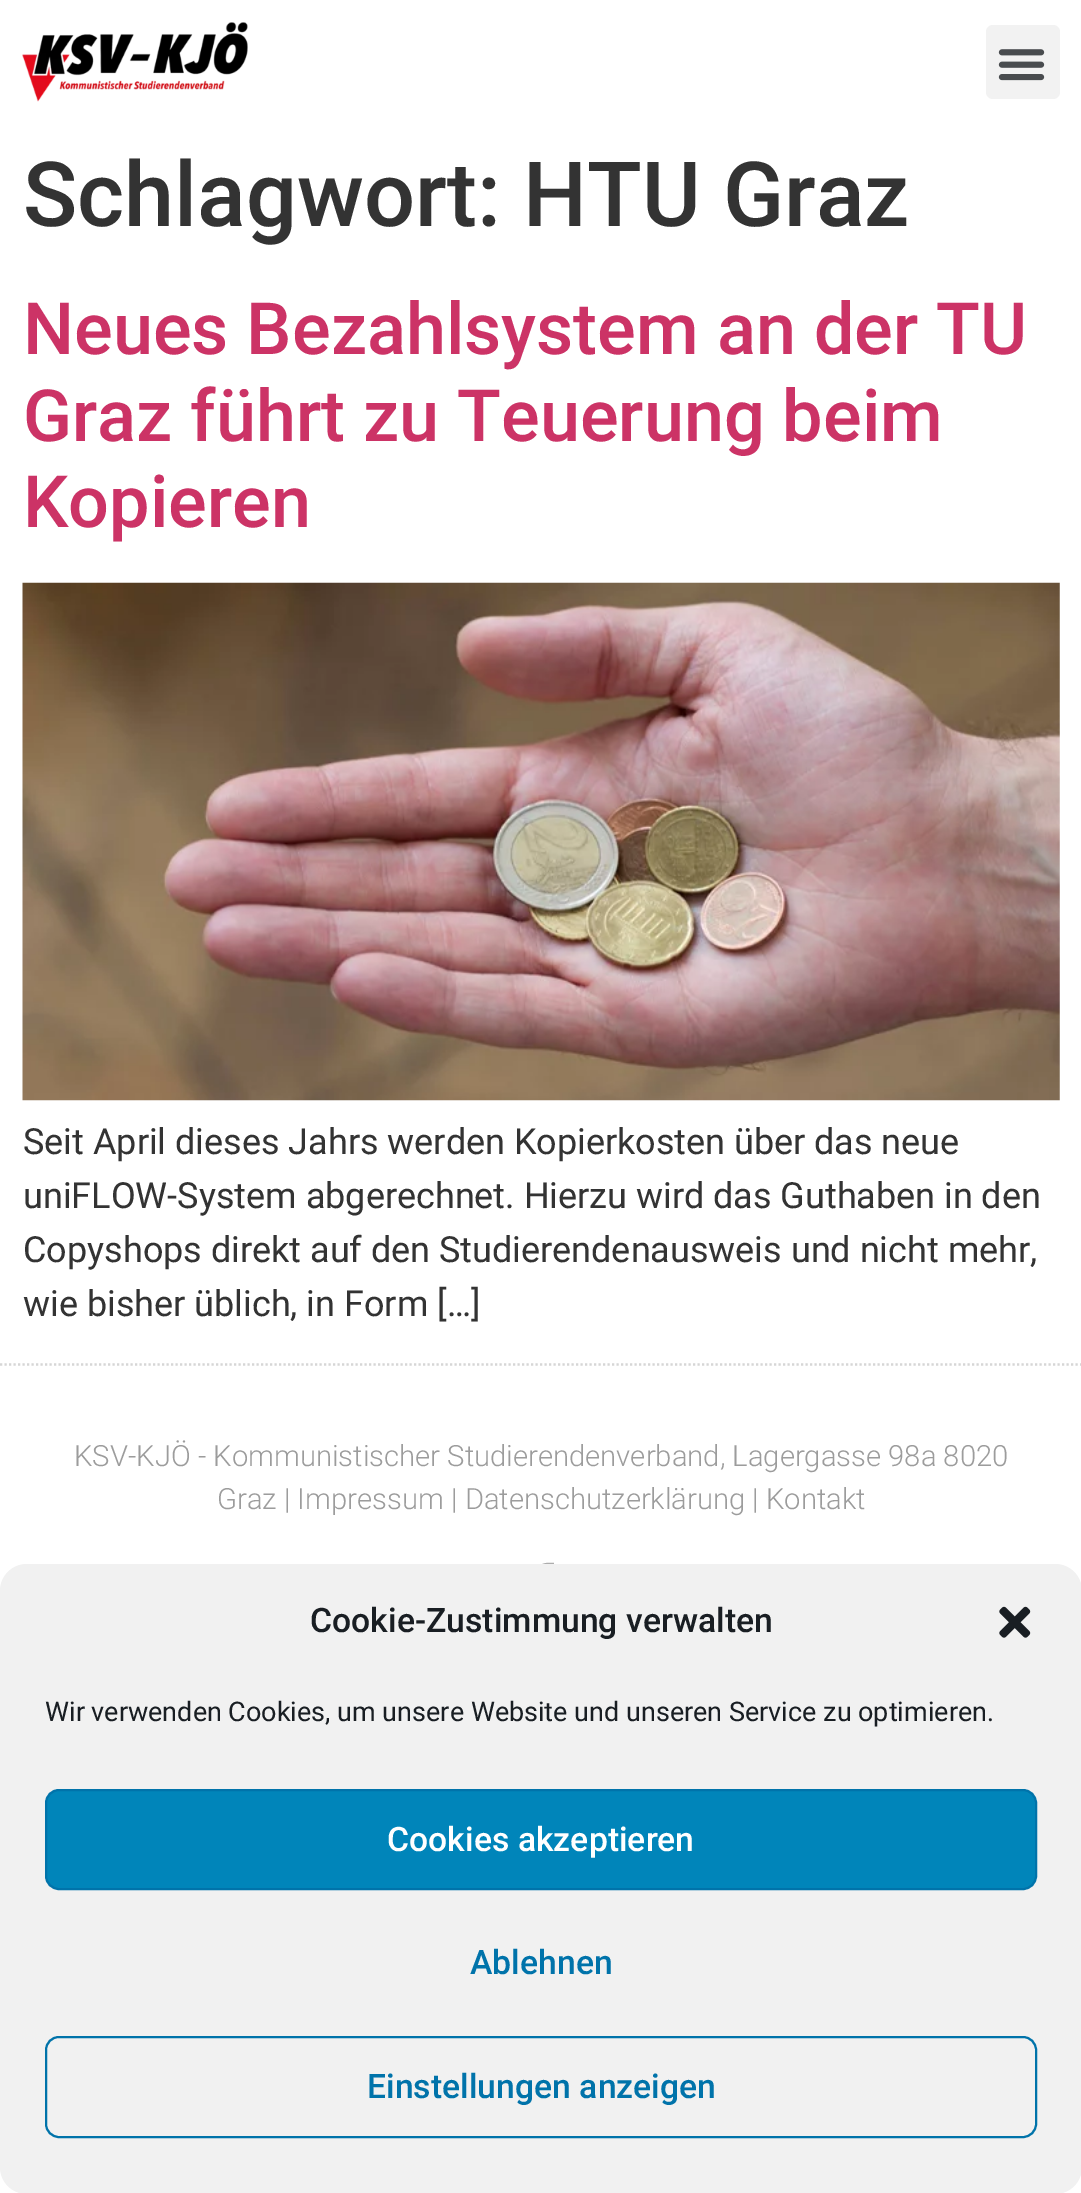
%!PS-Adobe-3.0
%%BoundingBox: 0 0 1081 2193
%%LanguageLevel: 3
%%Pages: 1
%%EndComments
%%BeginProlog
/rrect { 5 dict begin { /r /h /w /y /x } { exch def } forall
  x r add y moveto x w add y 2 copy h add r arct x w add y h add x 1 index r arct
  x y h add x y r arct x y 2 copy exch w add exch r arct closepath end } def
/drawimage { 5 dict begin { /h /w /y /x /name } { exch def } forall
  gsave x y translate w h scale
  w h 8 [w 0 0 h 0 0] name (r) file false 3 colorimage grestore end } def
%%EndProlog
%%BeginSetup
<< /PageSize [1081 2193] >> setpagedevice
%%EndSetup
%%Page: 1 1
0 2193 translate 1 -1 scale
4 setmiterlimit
1 setgray
0 0 1081 2193 rectfill
(images/1.raw) 22 22 226 80 drawimage
0.949 setgray
986 25 74 74 7 rrect fill
(images/2.raw) 998 49 47 32 drawimage
(images/3.raw) 22 582 1038 519 drawimage
0.839 setgray
2.2 setlinewidth
[2.25 2.25] 0 setdash
newpath 0 1364.5 moveto 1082 1364.5 lineto stroke
0.678 setgray
newpath 553 1588 moveto 546 1588 lineto 546 1608 lineto 537 1608 lineto 537 1588 lineto 530 1588 lineto 530 1580 lineto 537 1580 lineto 537 1565 540 1562 554 1563 curveto 554 1570 lineto 546 1570 546 1572 546 1580 curveto 554 1580 lineto closepath fill
0.945 setgray
0 1564 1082 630 27 rrect fill
(images/4.raw) 999 1606 32 32 drawimage
0 0.522 0.729 setrgbcolor
46 1790 990 99 13 rrect gsave fill grestore
0 0.451 0.667 setrgbcolor
2 setlinewidth
[] 0 setdash
stroke
46 2037 990 100 13 rrect stroke
/Roboto-Medium [90 0 0 -90 0 0] selectfont
0.2 setgray
23 226 moveto (Schlagwort: HTU Graz) show
/Roboto-Medium [72 0 0 -72 0 0] selectfont
0.8 0.2 0.4 setrgbcolor
23 354 moveto (Neues Bezahlsystem an der TU) show
23 441 moveto (Graz führt zu Teuerung beim) show
23 527 moveto (Kopieren) show
/Roboto-Regular [36 0 0 -36 0 0] selectfont
0.2 setgray
23 1154 moveto (Seit April dieses Jahrs werden Kopierkosten über das neue) show
23 1208 moveto (uniFLOW-System abgerechnet. Hierzu wird das Guthaben in den) show
23 1262 moveto (Copyshops direkt auf den Studierendenausweis und nicht mehr,) show
23 1316 moveto (wie bisher üblich, in Form […]) show
/Roboto-Light [29.25 0 0 -29.25 0 0] selectfont
0.612 setgray
74 1466 moveto (KSV-KJÖ - Kommunistischer Studierendenverband, Lagergasse 98a 8020) show
217 1509 moveto (Graz | Impressum | Datenschutzerklärung | Kontakt) show
/Roboto-Medium [33.75 0 0 -33.75 0 0] selectfont
0.098 0.118 0.137 setrgbcolor
310 1632 moveto (Cookie-Zustimmung verwalten) show
/Roboto-Regular [27 0 0 -27 0 0] selectfont
45 1721 moveto (Wir verwenden Cookies, um unsere Website und unseren Service zu optimieren.) show
/Roboto-Medium [33.75 0 0 -33.75 0 0] selectfont
1 setgray
387 1851 moveto (Cookies akzeptieren) show
0 0.451 0.667 setrgbcolor
470 1974 moveto (Ablehnen) show
367 2098 moveto (Einstellungen anzeigen) show
showpage
%%EOF
